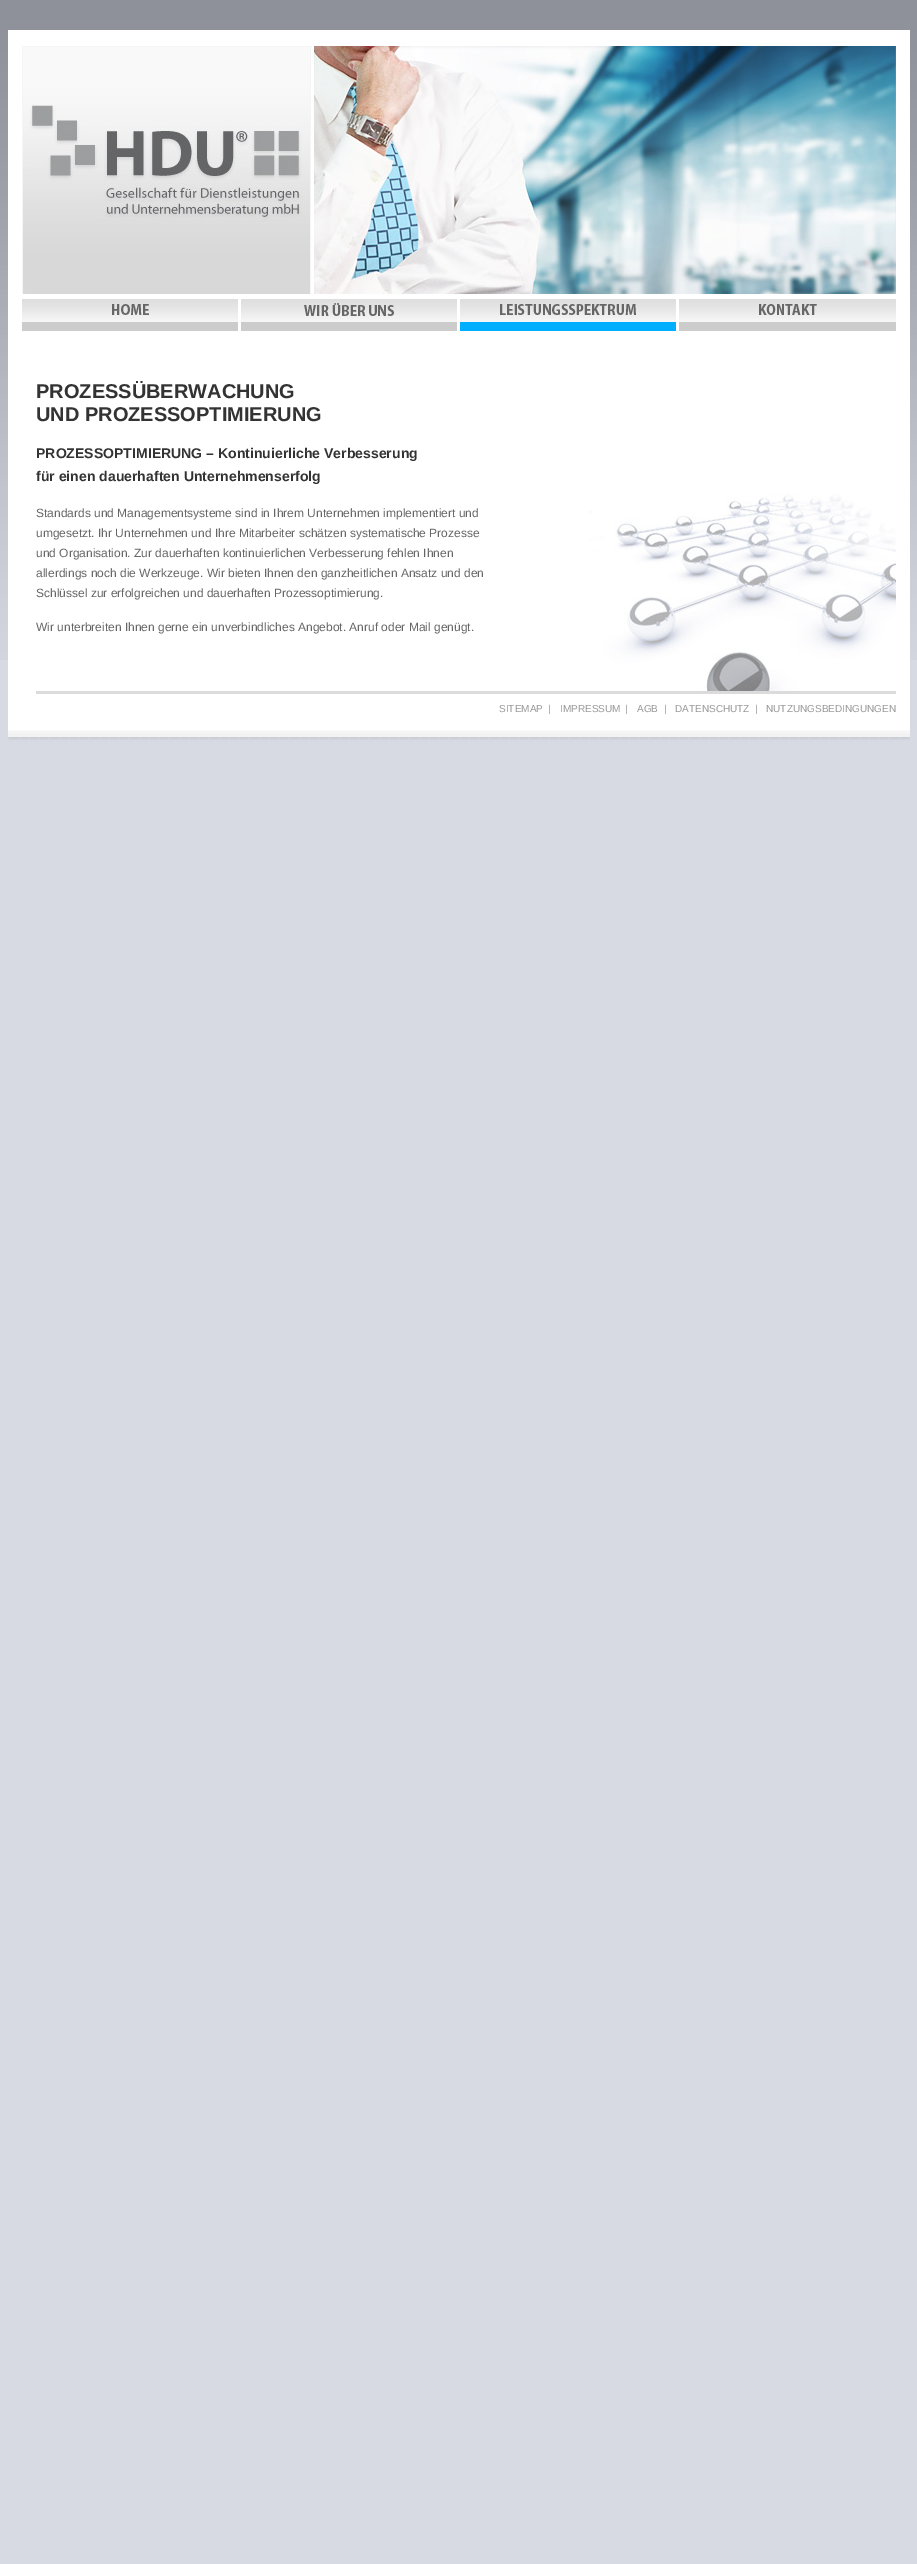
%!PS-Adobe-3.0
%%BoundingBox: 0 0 917 2564
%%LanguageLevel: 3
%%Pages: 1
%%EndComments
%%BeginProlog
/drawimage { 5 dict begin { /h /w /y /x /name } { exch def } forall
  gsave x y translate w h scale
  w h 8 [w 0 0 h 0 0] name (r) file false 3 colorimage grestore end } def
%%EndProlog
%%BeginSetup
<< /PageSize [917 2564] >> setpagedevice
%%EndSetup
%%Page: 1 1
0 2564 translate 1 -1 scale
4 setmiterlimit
0.847 0.855 0.89 setrgbcolor
0 0 917 2564 rectfill
(images/1.raw) 0 0 917 660 drawimage
1 setgray
8 30 902 700 rectfill
(images/2.raw) 8 730 902 7 drawimage
(images/3.raw) 22 46 874 248 drawimage
(images/4.raw) 22 299 216 23 drawimage
0.8 setgray
22 322 216 9 rectfill
(images/5.raw) 241 299 216 23 drawimage
241 322 216 9 rectfill
(images/6.raw) 460 299 216 23 drawimage
0 0.682 1 setrgbcolor
460 322 216 9 rectfill
(images/7.raw) 679 299 217 32 drawimage
(images/8.raw) 589 494 307 197 drawimage
0.859 setgray
36 691 860 3 rectfill
(images/9.raw) 8 737 902 3 drawimage
/LiberationSans-Bold [20 0 0 -20 0 0] selectfont
0.2 setgray
36 398 moveto (PROZESSÜBERWACHUNG) show
36 421 moveto (UND PROZESSOPTIMIERUNG) show
/LiberationSans-Bold [14.05 0 0 -14.05 0 0] selectfont
36 458 moveto (PROZESSOPTIMIERUNG – Kontinuierliche Verbesserung) show
36 481 moveto (für einen dauerhaften Unternehmenserfolg) show
/LiberationSans-Regular [12 0 0 -12 0 0] selectfont
0.4 setgray
36 517 moveto (Standards und Managementsysteme sind in Ihrem Unternehmen implementiert und) show
36 537 moveto (umgesetzt. Ihr Unternehmen und Ihre Mitarbeiter schätzen systematische Prozesse) show
36 557 moveto (und Organisation. Zur dauerhaften kontinuierlichen Verbesserung fehlen Ihnen) show
36 577 moveto (allerdings noch die Werkzeuge. Wir bieten Ihnen den ganzheitlichen Ansatz und den) show
36 597 moveto (Schlüssel zur erfolgreichen und dauerhaften Prozessoptimierung.) show
36 631 moveto (Wir unterbreiten Ihnen gerne ein unverbindliches Angebot. Anruf oder Mail genügt.) show
/LiberationSans-Regular [10 0 0 -10 0 0] selectfont
0.6 setgray
499 712 moveto (SITEMAP) show
548 712 moveto (|) show
560 712 moveto (IMPRESSUM) show
625 712 moveto (|) show
637 712 moveto (AGB) show
664 712 moveto (|) show
675 712 moveto (DATENSCHUTZ) show
755 712 moveto (|) show
766 712 moveto (NUTZUNGSBEDINGUNGEN) show
showpage
%%EOF
